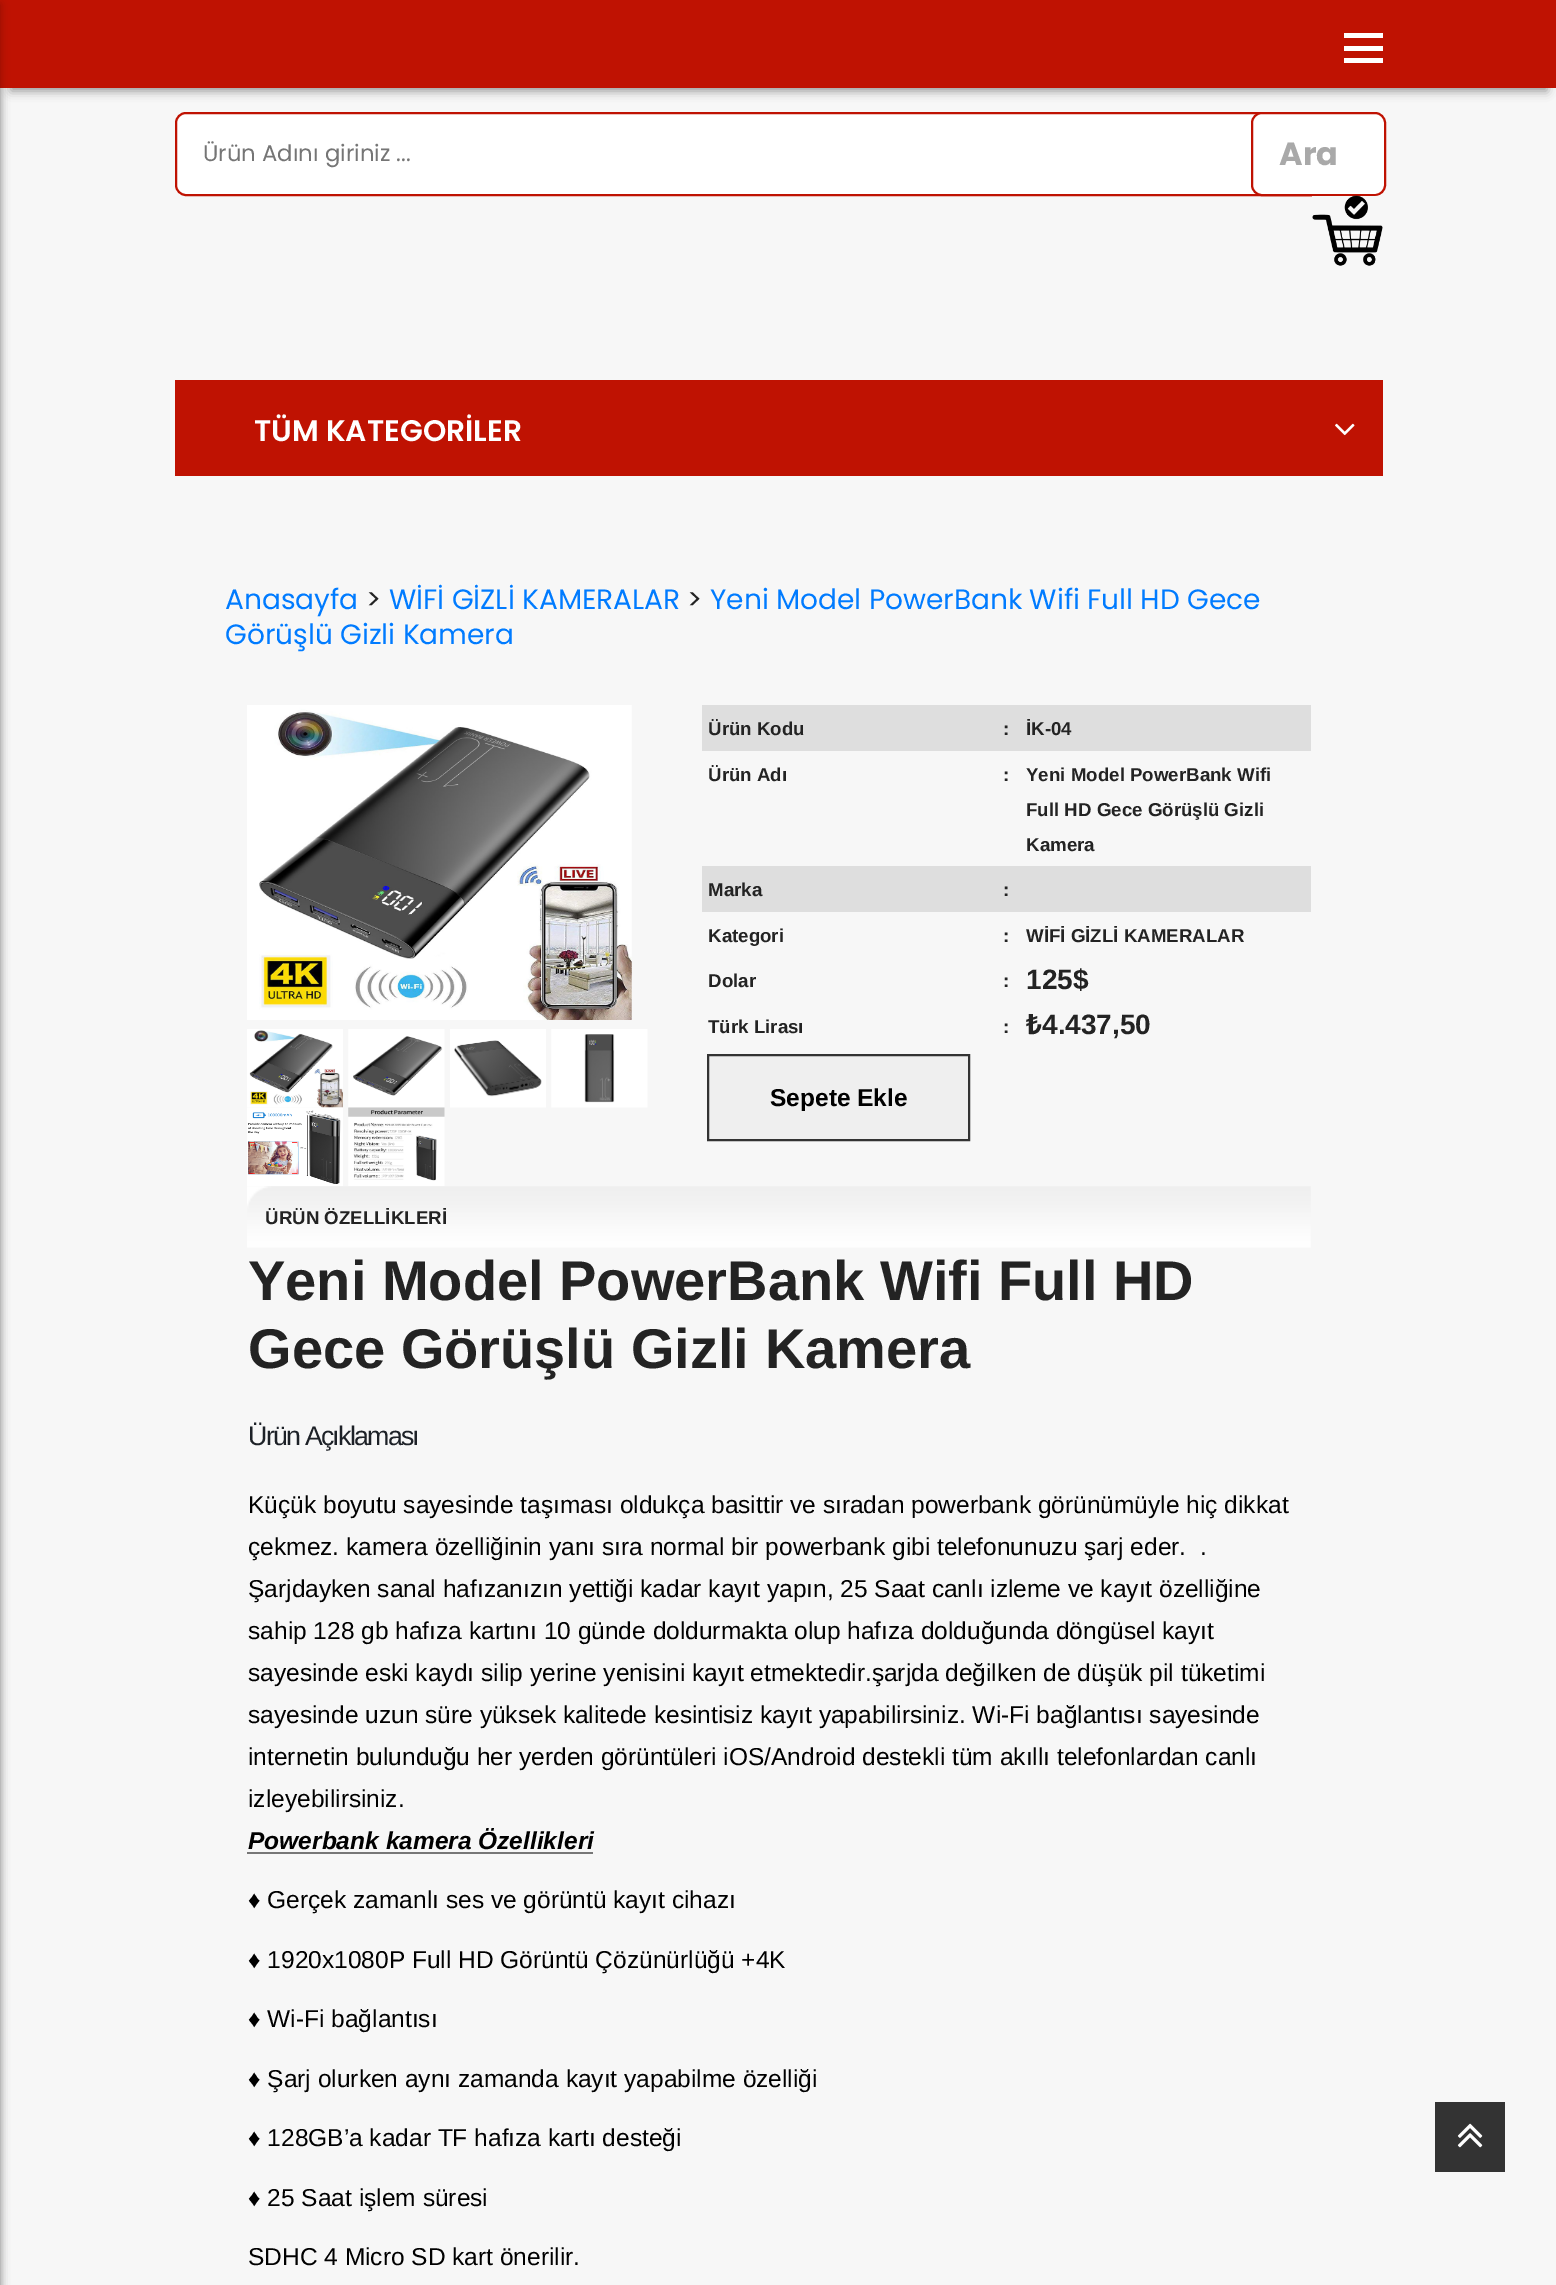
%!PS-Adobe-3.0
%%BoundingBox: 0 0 1556 2285
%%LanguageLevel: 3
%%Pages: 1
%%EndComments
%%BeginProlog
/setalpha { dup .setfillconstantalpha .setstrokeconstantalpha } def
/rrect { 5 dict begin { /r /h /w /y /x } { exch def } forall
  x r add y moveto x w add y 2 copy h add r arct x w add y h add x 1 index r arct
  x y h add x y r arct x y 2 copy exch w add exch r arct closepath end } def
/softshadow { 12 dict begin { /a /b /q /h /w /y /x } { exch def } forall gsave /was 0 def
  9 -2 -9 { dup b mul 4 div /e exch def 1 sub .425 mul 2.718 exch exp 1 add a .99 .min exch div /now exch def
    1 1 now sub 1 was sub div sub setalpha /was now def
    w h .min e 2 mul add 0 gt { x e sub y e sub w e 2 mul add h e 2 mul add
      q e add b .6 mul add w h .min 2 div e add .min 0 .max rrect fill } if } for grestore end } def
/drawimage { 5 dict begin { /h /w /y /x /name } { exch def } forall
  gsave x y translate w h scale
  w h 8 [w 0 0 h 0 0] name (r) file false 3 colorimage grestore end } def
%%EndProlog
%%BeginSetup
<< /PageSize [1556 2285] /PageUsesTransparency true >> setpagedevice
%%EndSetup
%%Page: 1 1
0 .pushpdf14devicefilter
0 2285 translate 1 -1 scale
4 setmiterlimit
0.969 setgray
0 0 1556 2285 rectfill
0 setgray
-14 4 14 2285 0 4.5 0.26 softshadow
11 25 1536 66 0 5 0.4 softshadow
0.749 0.071 0.008 setrgbcolor
0 0 1556 88 rectfill
0 setgray
-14 4 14 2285 0 4.5 0.26 softshadow
1 setgray
1344 33 39 5 rectfill
1344 46 39 5 rectfill
1344 58 39 5 rectfill
176 113 1206 82 10 rrect gsave fill grestore
0.749 0.071 0.008 setrgbcolor
2 setlinewidth
stroke
1 setgray
1252 113 133 82 10 rrect gsave fill grestore
0.749 0.071 0.008 setrgbcolor
stroke
(images/1.raw) 1312 195 71 71 drawimage
175 380 1208 96 rectfill
(images/2.raw) 1335 423 20 13 drawimage
(images/3.raw) 247 705 385 315 drawimage
(images/4.raw) 247 1029 96 79 drawimage
(images/5.raw) 348 1029 97 79 drawimage
(images/6.raw) 450 1029 96 79 drawimage
(images/7.raw) 551 1029 97 79 drawimage
(images/8.raw) 247 1107 96 79 drawimage
(images/9.raw) 348 1107 97 79 drawimage
0.871 setgray
702 705 609 46 rectfill
702 866 609 46 rectfill
0.937 setgray
newpath 708 1055 moveto 969 1055 lineto 969 1140 lineto 708 1140 lineto closepath gsave fill grestore
0.2 setgray
stroke
(images/10.raw) 247 1186 1064 62 drawimage
0.467 setgray
247 1852 346 2 rectfill
0.2 setgray
1435 2102 70 70 rectfill
(images/11.raw) 1457 2123 26 25 drawimage
/Poppins-Regular [22.75 0 0 -22.75 0 0] selectfont
0.459 setgray
203 161 moveto (Ürün Adını giriniz ...) show
/Poppins-Bold [32 0 0 -32 0 0] selectfont
0.663 setgray
1279 165 moveto (Ara) show
/Poppins-SemiBold [29.75 0 0 -29.75 0 0] selectfont
1 setgray
254 441 moveto (TÜM KATEGORİLER) show
/Poppins-Regular [28 0 0 -28 0 0] selectfont
0 0.482 1 setrgbcolor
225 609 moveto (Anasayfa) show
0.137 setgray
366 609 moveto (>) show
0 0.482 1 setrgbcolor
389 609 moveto (WİFİ GİZLİ KAMERALAR) show
0.137 setgray
687 609 moveto (>) show
0 0.482 1 setrgbcolor
710 609 moveto (Yeni Model PowerBank Wifi Full HD Gece) show
225 644 moveto (Görüşlü Gizli Kamera) show
/LiberationSans-Bold [18.7 0 0 -18.7 0 0] selectfont
0.137 setgray
708 735 moveto (Ürün Kodu) show
1003 735 moveto (:) show
1026 735 moveto (İK-04) show
708 781 moveto (Ürün Adı) show
1003 781 moveto (:) show
1026 781 moveto (Yeni Model PowerBank Wifi) show
1026 816 moveto (Full HD Gece Görüşlü Gizli) show
1026 851 moveto (Kamera) show
708 896 moveto (Marka) show
1003 896 moveto (:) show
708 942 moveto (Kategori) show
1003 942 moveto (:) show
1026 942 moveto (WİFİ GİZLİ KAMERALAR) show
708 987 moveto (Dolar) show
1003 987 moveto (:) show
/LiberationSans-Bold [28 0 0 -28 0 0] selectfont
1026 989 moveto (125$) show
/LiberationSans-Bold [18.7 0 0 -18.7 0 0] selectfont
708 1033 moveto (Türk Lirası) show
1003 1033 moveto (:) show
/NotoSans-Bold [28 0 0 -28 0 0] selectfont
1026 1034 moveto (₺) show
/LiberationSans-Bold [28 0 0 -28 0 0] selectfont
1042 1034 moveto (4.437,50) show
/LiberationSans-Bold [24.5 0 0 -24.5 0 0] selectfont
0 setgray
770 1106 moveto (Sepete Ekle) show
/LiberationSans-Bold [18.7 0 0 -18.7 0 0] selectfont
0.137 setgray
265 1224 moveto (ÜRÜN ÖZELLİKLERİ) show
/LiberationSans-Bold [56 0 0 -56 0 0] selectfont
248 1300 moveto (Yeni Model PowerBank Wifi Full HD) show
248 1368 moveto (Gece Görüşlü Gizli Kamera) show
/LiberationSans-Regular [26.75 0 0 -26.75 0 0] selectfont
0.114 0.129 0.153 setrgbcolor
248 1445 moveto -1.75 0 (Ürün Açıklaması) ashow
/LiberationSans-Regular [24.5 0 0 -24.5 0 0] selectfont
0 setgray
248 1513 moveto (Küçük boyutu sayesinde taşıması oldukça basittir ve sıradan powerbank görünümüyle hiç dikkat) show
248 1555 moveto (çekmez. kamera özelliğinin yanı sıra normal bir powerbank gibi telefonunuzu şarj eder.  .) show
248 1597 moveto (Şarjdayken sanal hafızanızın yettiği kadar kayıt yapın, 25 Saat canlı izleme ve kayıt özelliğine) show
248 1639 moveto (sahip 128 gb hafıza kartını 10 günde doldurmakta olup hafıza dolduğunda döngüsel kayıt) show
248 1681 moveto (sayesinde eski kaydı silip yerine yenisini kayıt etmektedir.şarjda değilken de düşük pil tüketimi) show
248 1723 moveto (sayesinde uzun süre yüksek kalitede kesintisiz kayıt yapabilirsiniz. Wi-Fi bağlantısı sayesinde) show
248 1765 moveto (internetin bulunduğu her yerden görüntüleri iOS/Android destekli tüm akıllı telefonlardan canlı) show
248 1807 moveto (izleyebilirsiniz.) show
/LiberationSans-BoldItalic [24.5 0 0 -24.5 0 0] selectfont
248 1849 moveto (Powerbank kamera Özellikleri) show
/LiberationSans-Regular [24.5 0 0 -24.5 0 0] selectfont
248 1908 moveto (♦ Gerçek zamanlı ses ve görüntü kayıt cihazı) show
248 1968 moveto (♦ 1920x1080P Full HD Görüntü Çözünürlüğü +4K) show
248 2027 moveto (♦ Wi-Fi bağlantısı) show
248 2087 moveto (♦ Şarj olurken aynı zamanda kayıt yapabilme özelliği) show
248 2146 moveto (♦ 128GB’a kadar TF hafıza kartı desteği) show
248 2206 moveto (♦ 25 Saat işlem süresi) show
248 2265 moveto (SDHC 4 Micro SD kart önerilir.) show
.poppdf14devicefilter showpage
%%EOF
